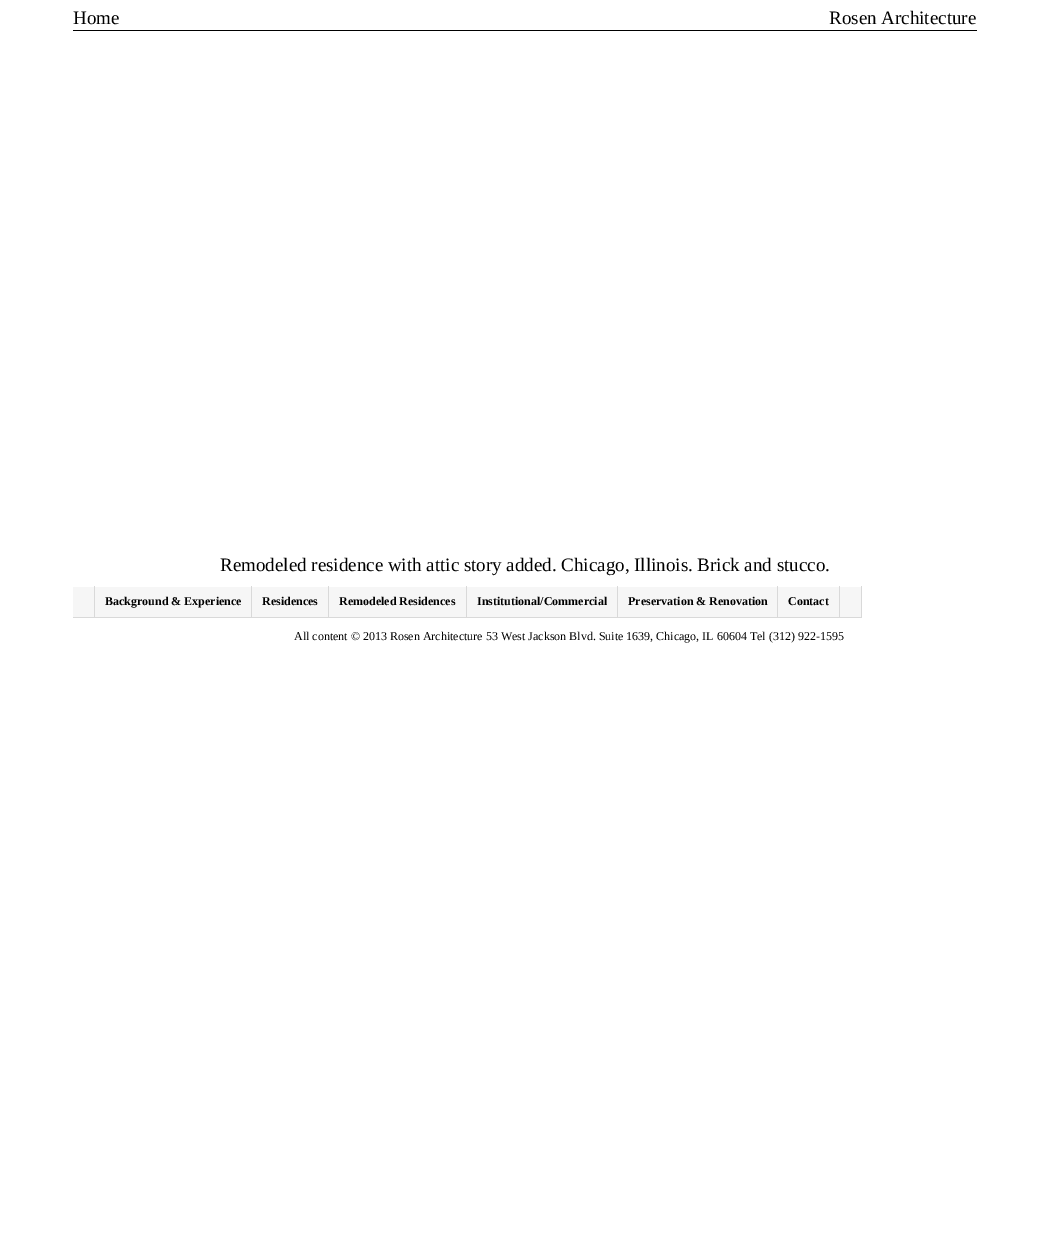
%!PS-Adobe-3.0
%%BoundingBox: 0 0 1049 1243
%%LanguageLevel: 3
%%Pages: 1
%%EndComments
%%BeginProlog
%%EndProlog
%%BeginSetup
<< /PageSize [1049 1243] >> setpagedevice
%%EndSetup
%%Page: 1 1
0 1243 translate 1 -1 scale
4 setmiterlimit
1 setgray
0 0 1049 1243 rectfill
0 setgray
73 30 904 1 rectfill
0.965 setgray
73 587 21 30 rectfill
0.851 setgray
94 586 1 32 rectfill
73 617 22 1 rectfill
0.965 setgray
95 587 156 30 rectfill
0.851 setgray
251 586 1 32 rectfill
95 617 157 1 rectfill
0.965 setgray
252 587 76 30 rectfill
0.851 setgray
328 586 1 32 rectfill
252 617 77 1 rectfill
0.965 setgray
329 587 137 30 rectfill
0.851 setgray
466 586 1 32 rectfill
329 617 138 1 rectfill
0.965 setgray
467 587 150 30 rectfill
0.851 setgray
617 586 1 32 rectfill
467 617 151 1 rectfill
0.965 setgray
618 587 159 30 rectfill
0.851 setgray
777 586 1 32 rectfill
618 617 160 1 rectfill
0.965 setgray
778 587 61 30 rectfill
0.851 setgray
839 586 1 32 rectfill
778 617 62 1 rectfill
0.965 setgray
840 587 21 30 rectfill
0.851 setgray
861 586 1 32 rectfill
840 617 22 1 rectfill
/LiberationSerif-Regular [19 0 0 -19 0 0] selectfont
0 setgray
73 24 moveto (Home) show
829 24 moveto (Rosen Architecture) show
220 571 moveto (Remodeled residence with attic story added. Chicago, Illinois. Brick and stucco.) show
/LiberationSerif-Bold [12 0 0 -12 0 0] selectfont
105 605 moveto (Background & Experience) show
262 605 moveto (Residences) show
339 605 moveto (Remodeled Residences) show
477 605 moveto (Institutional/Commercial) show
628 605 moveto (Preservation & Renovation) show
788 605 moveto (Contact) show
/LiberationSerif-Regular [12 0 0 -12 0 0] selectfont
294 640 moveto (All content © 2013 Rosen Architecture 53 West Jackson Blvd. Suite 1639, Chicago, IL 60604 Tel \(312\) 922-1595) show
showpage
%%EOF
